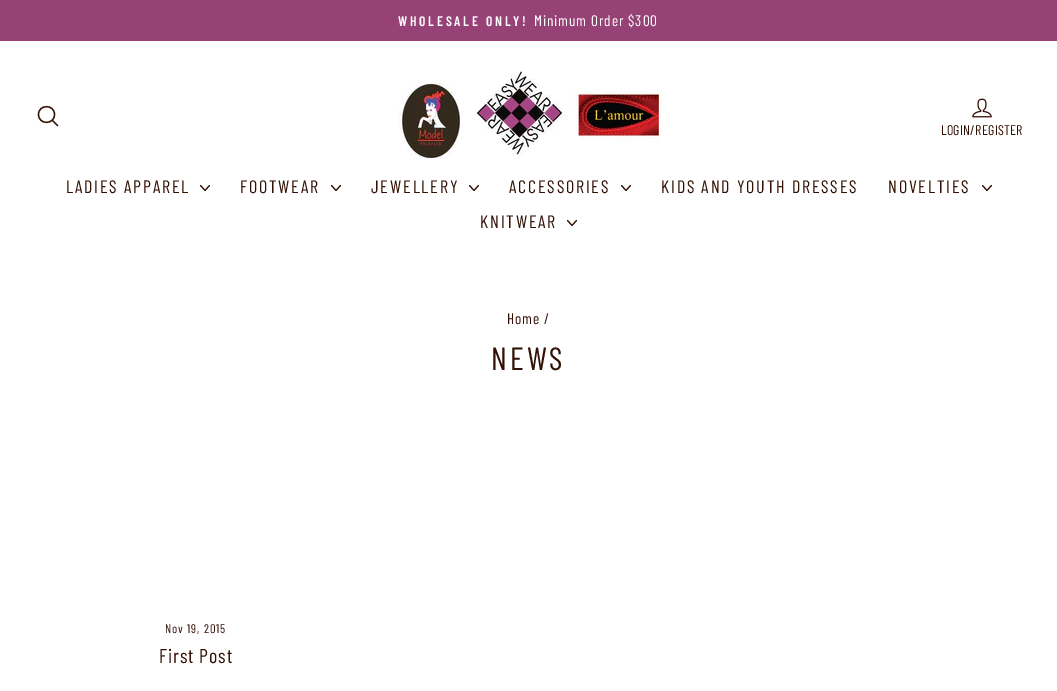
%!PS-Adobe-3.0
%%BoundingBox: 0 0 1057 691
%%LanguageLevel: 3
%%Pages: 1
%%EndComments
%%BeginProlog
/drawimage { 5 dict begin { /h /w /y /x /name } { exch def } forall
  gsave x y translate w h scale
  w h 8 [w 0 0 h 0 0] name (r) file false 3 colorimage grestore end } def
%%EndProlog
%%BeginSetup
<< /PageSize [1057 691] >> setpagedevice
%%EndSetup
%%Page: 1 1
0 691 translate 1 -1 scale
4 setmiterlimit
1 setgray
0 0 1057 691 rectfill
0.592 0.259 0.467 setrgbcolor
0 0 1057 41 rectfill
0.196 0.063 0.016 setrgbcolor
1.3 setlinewidth
1 setlinecap
1 setlinejoin
newpath 54.5 114.5 moveto 54.5 125 38.5 125 38.5 114.5 curveto 38.5 104 54.5 104 54.5 114.5 curveto closepath 57.5 125.5 moveto 52.5 120.5 lineto stroke
(images/1.raw) 399 71 260 88 drawimage
(images/2.raw) 972 98 20 20 drawimage
1.1 setlinewidth
newpath 200.5 185.5 moveto 205 190.5 lineto 209.5 185.5 lineto stroke
newpath 331.5 185.5 moveto 336 190.5 lineto 340.5 185.5 lineto stroke
newpath 469.5 185.5 moveto 474 190.5 lineto 478.5 185.5 lineto stroke
newpath 621.5 185.5 moveto 626 190.5 lineto 630.5 185.5 lineto stroke
newpath 982.5 185.5 moveto 987 190.5 lineto 991.5 185.5 lineto stroke
newpath 567.5 220.5 moveto 572 225.5 lineto 576.5 220.5 lineto stroke
/BarlowCondensed-SemiBold [13.75 0 0 -13.75 0 0] selectfont
1 setgray
398 26 moveto 2.75 0 (WHOLESALE ONLY!) ashow
/BarlowCondensed-Regular [15.25 0 0 -15.25 0 0] selectfont
534 26 moveto 0.9 0 (Minimum Order $300) ashow
/BarlowCondensed-Regular [14 0 0 -14 0 0] selectfont
0.196 0.063 0.016 setrgbcolor
941 135 moveto 0.25 0 (LOGIN/REGISTER) ashow
/BarlowCondensed-Regular [18 0 0 -18 0 0] selectfont
66 193 moveto 1.8 0 (LADIES APPAREL) ashow
240 193 moveto 1.8 0 (FOOTWEAR) ashow
371 193 moveto 1.8 0 (JEWELLERY) ashow
509 193 moveto 1.8 0 (ACCESSORIES) ashow
661 193 moveto 1.8 0 (KIDS AND YOUTH DRESSES) ashow
888 193 moveto 1.8 0 (NOVELTIES) ashow
480 228 moveto 1.8 0 (KNITWEAR) ashow
/BarlowCondensed-Regular [15.25 0 0 -15.25 0 0] selectfont
507 324 moveto 0.9 0 (Home /) ashow
/BarlowCondensed-Regular [32 0 0 -32 0 0] selectfont
491 370 moveto 3 0 (NEWS) ashow
/BarlowCondensed-Regular [12.5 0 0 -12.5 0 0] selectfont
165 633 moveto 0.9 0 (Nov 19, 2015) ashow
/BarlowCondensed-Regular [20 0 0 -20 0 0] selectfont
159 663 moveto 0.9 0 (First Post) ashow
showpage
%%EOF
